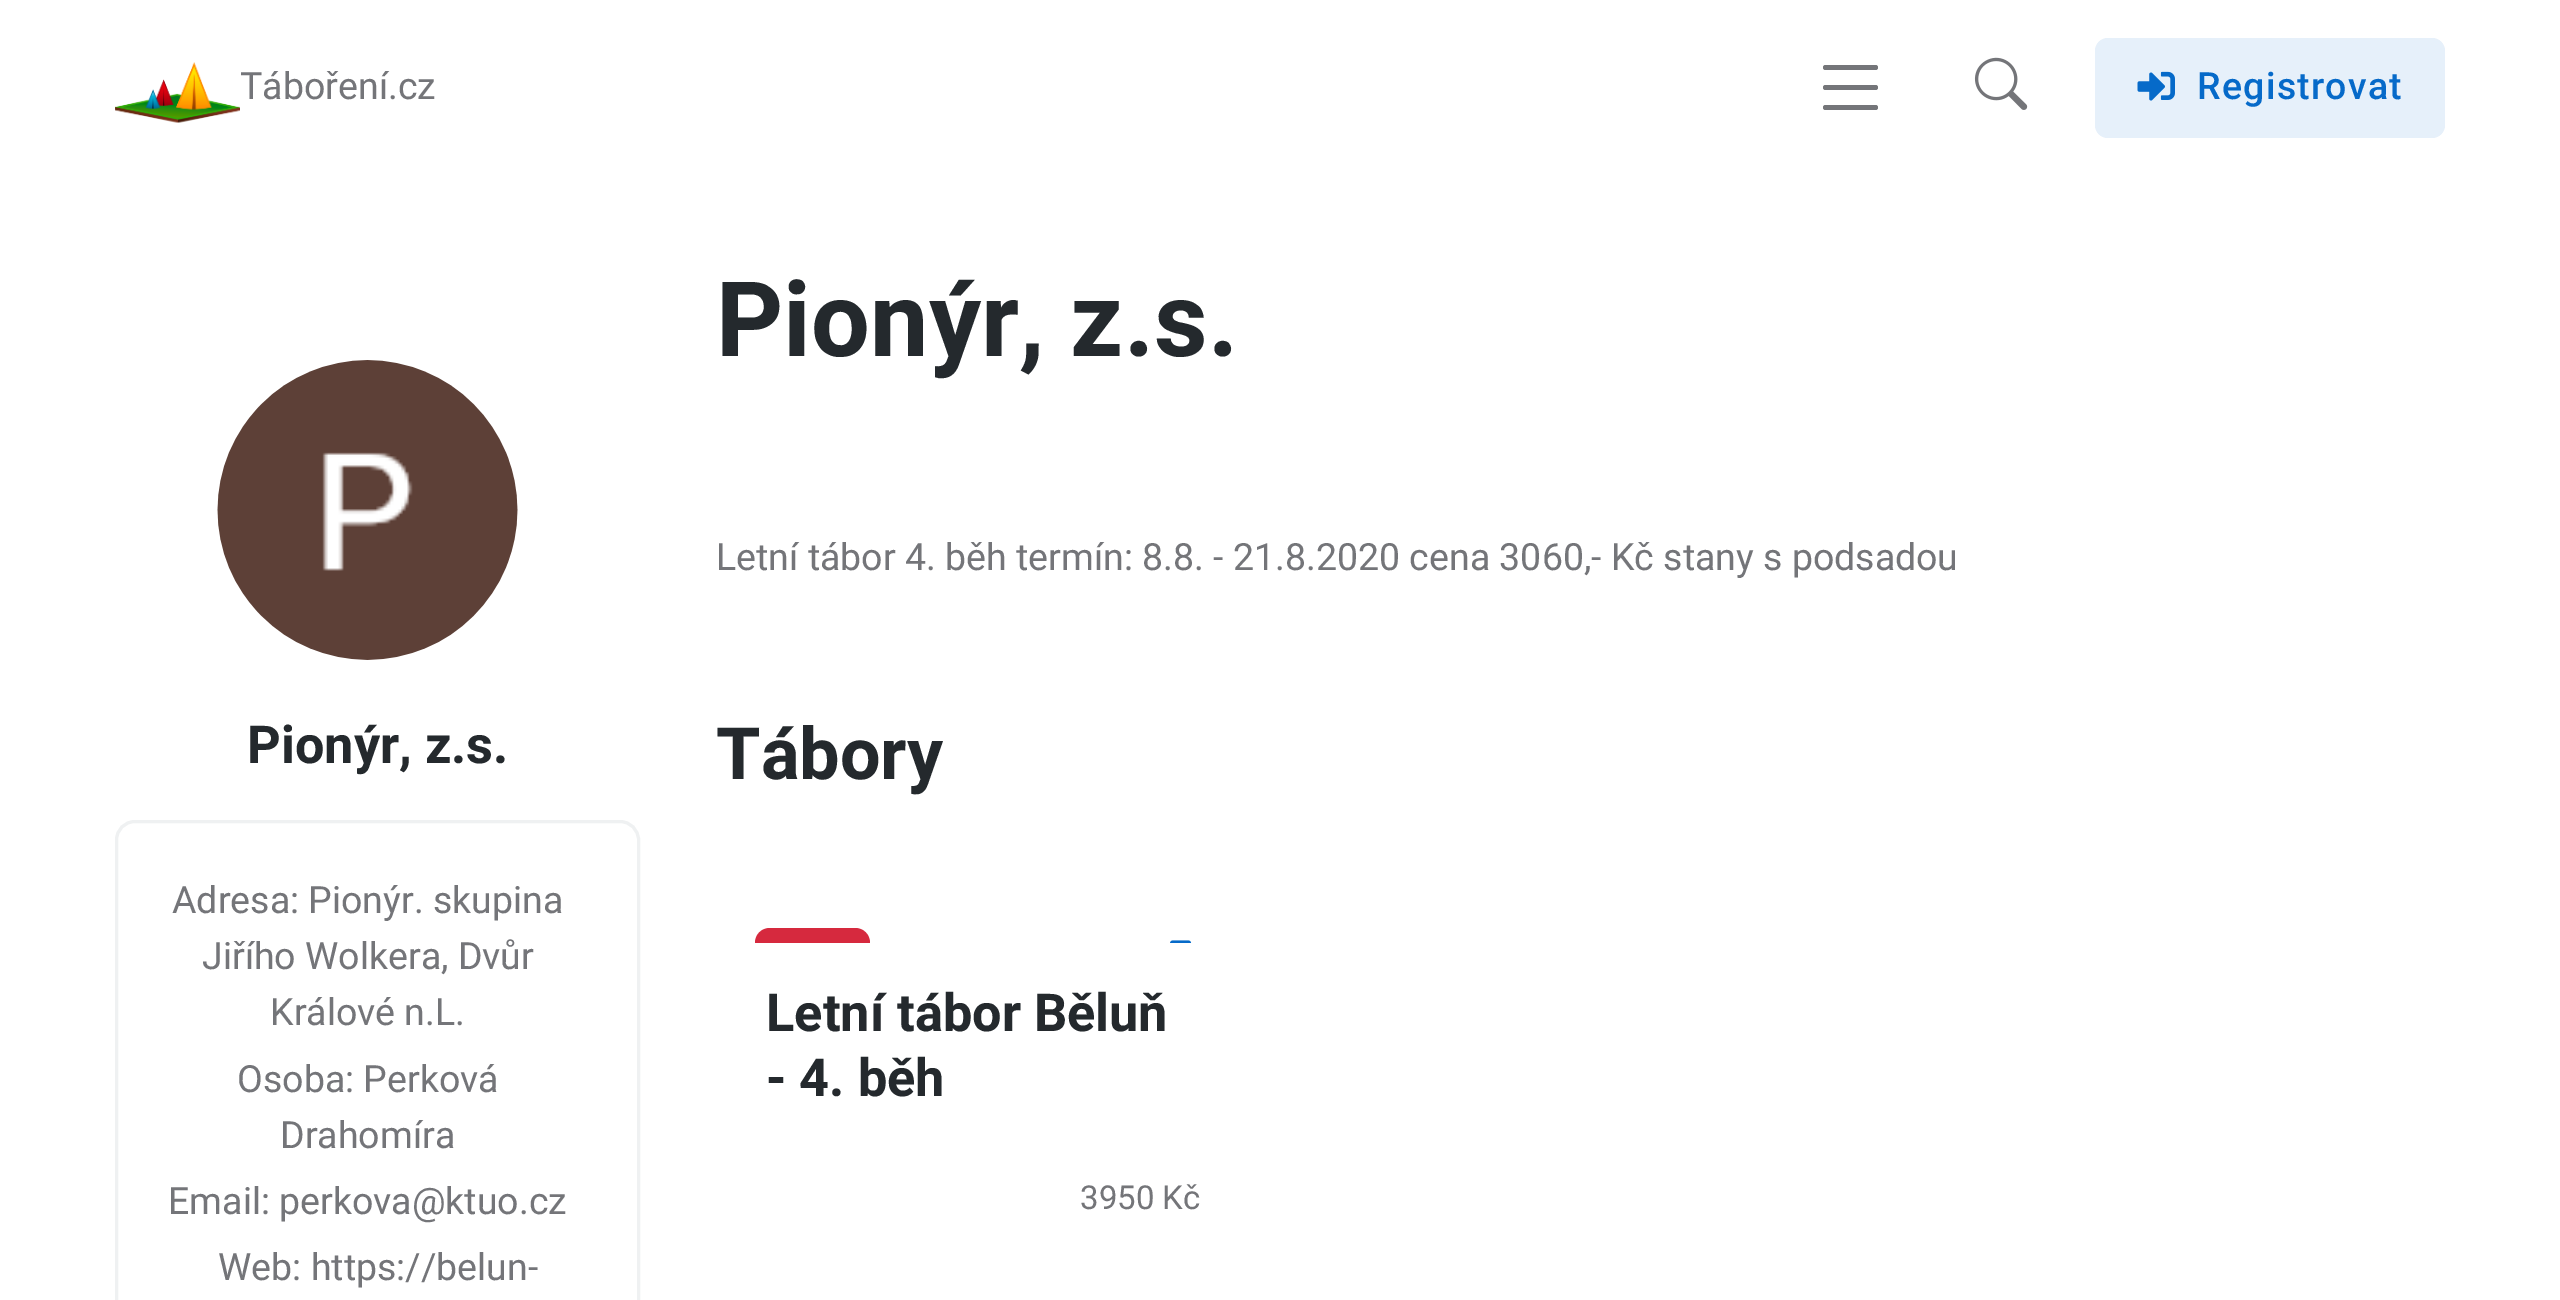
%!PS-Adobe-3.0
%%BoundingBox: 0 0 2560 1300
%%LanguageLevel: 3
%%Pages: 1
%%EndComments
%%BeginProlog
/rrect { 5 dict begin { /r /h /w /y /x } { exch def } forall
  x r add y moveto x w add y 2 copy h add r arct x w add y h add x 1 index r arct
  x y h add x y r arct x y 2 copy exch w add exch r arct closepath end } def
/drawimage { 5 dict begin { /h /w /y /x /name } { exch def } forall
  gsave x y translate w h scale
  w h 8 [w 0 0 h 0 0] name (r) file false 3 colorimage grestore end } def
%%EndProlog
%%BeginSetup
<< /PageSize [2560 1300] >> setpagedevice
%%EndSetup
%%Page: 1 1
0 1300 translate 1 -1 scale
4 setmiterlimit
1 setgray
0 0 2560 1300 rectfill
(images/1.raw) 115 62 125 61 drawimage
0.455 0.459 0.475 setrgbcolor
1823 65 55 5 2.5 rrect fill
1823 85 55 5 2.5 rrect fill
1823 105 55 5 2.5 rrect fill
(images/2.raw) 1974 57 54 53 drawimage
0.902 0.941 0.98 setrgbcolor
2095 38 350 100 13 rrect fill
(images/3.raw) 2137 71 38 30 drawimage
(images/4.raw) 217 360 301 300 drawimage
0.937 0.945 0.949 setrgbcolor
3 setlinewidth
116.5 821.5 522 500 18.5 rrect stroke
0.839 0.161 0.243 setrgbcolor
newpath 770 928 moveto 855 928 lineto 863.5 928 870 934.5 870 943 curveto 755 943 lineto 755 934.5 761.5 928 770 928 curveto closepath fill
(images/5.raw) 1170 940 22 3 drawimage
/Roboto-Regular [37.5 0 0 -37.5 0 0] selectfont
0.455 0.459 0.475 setrgbcolor
240 99 moveto (Táboření.cz) show
/Roboto-Medium [37.5 0 0 -37.5 0 0] selectfont
0.024 0.416 0.788 setrgbcolor
2197 99 moveto 1.25 0 (Registrovat) ashow
/Heebo-Bold [52.25 0 0 -52.25 0 0] selectfont
0.141 0.161 0.176 setrgbcolor
247 763 moveto (Pionýr, z.s.) show
/Roboto-Regular [37.5 0 0 -37.5 0 0] selectfont
0.455 0.459 0.475 setrgbcolor
172 913 moveto (Adresa: Pionýr. skupina) show
202 969 moveto (Jiřího Wolkera, Dvůr) show
270 1025 moveto (Králové n.L.) show
237 1092 moveto (Osoba: Perková) show
280 1148 moveto (Drahomíra) show
168 1214 moveto (Email: perkova@ktuo.cz) show
218 1280 moveto (Web: https://belun-) show
/Heebo-Bold [104.25 0 0 -104.25 0 0] selectfont
0.141 0.161 0.176 setrgbcolor
716 356 moveto (Pionýr, z.s.) show
/Roboto-Regular [37.5 0 0 -37.5 0 0] selectfont
0.455 0.459 0.475 setrgbcolor
716 570 moveto (Letní tábor 4. běh termín: 8.8. - 21.8.2020 cena 3060,- Kč stany s podsadou) show
/Heebo-Bold [72 0 0 -72 0 0] selectfont
0.141 0.161 0.176 setrgbcolor
716 779 moveto (Tábory) show
/Heebo-Bold [52.25 0 0 -52.25 0 0] selectfont
766 1031 moveto (Letní tábor Běluň) show
766 1096 moveto (- 4. běh) show
/Roboto-Regular [33 0 0 -33 0 0] selectfont
0.455 0.459 0.475 setrgbcolor
1080 1209 moveto (3950 Kč) show
showpage
%%EOF
